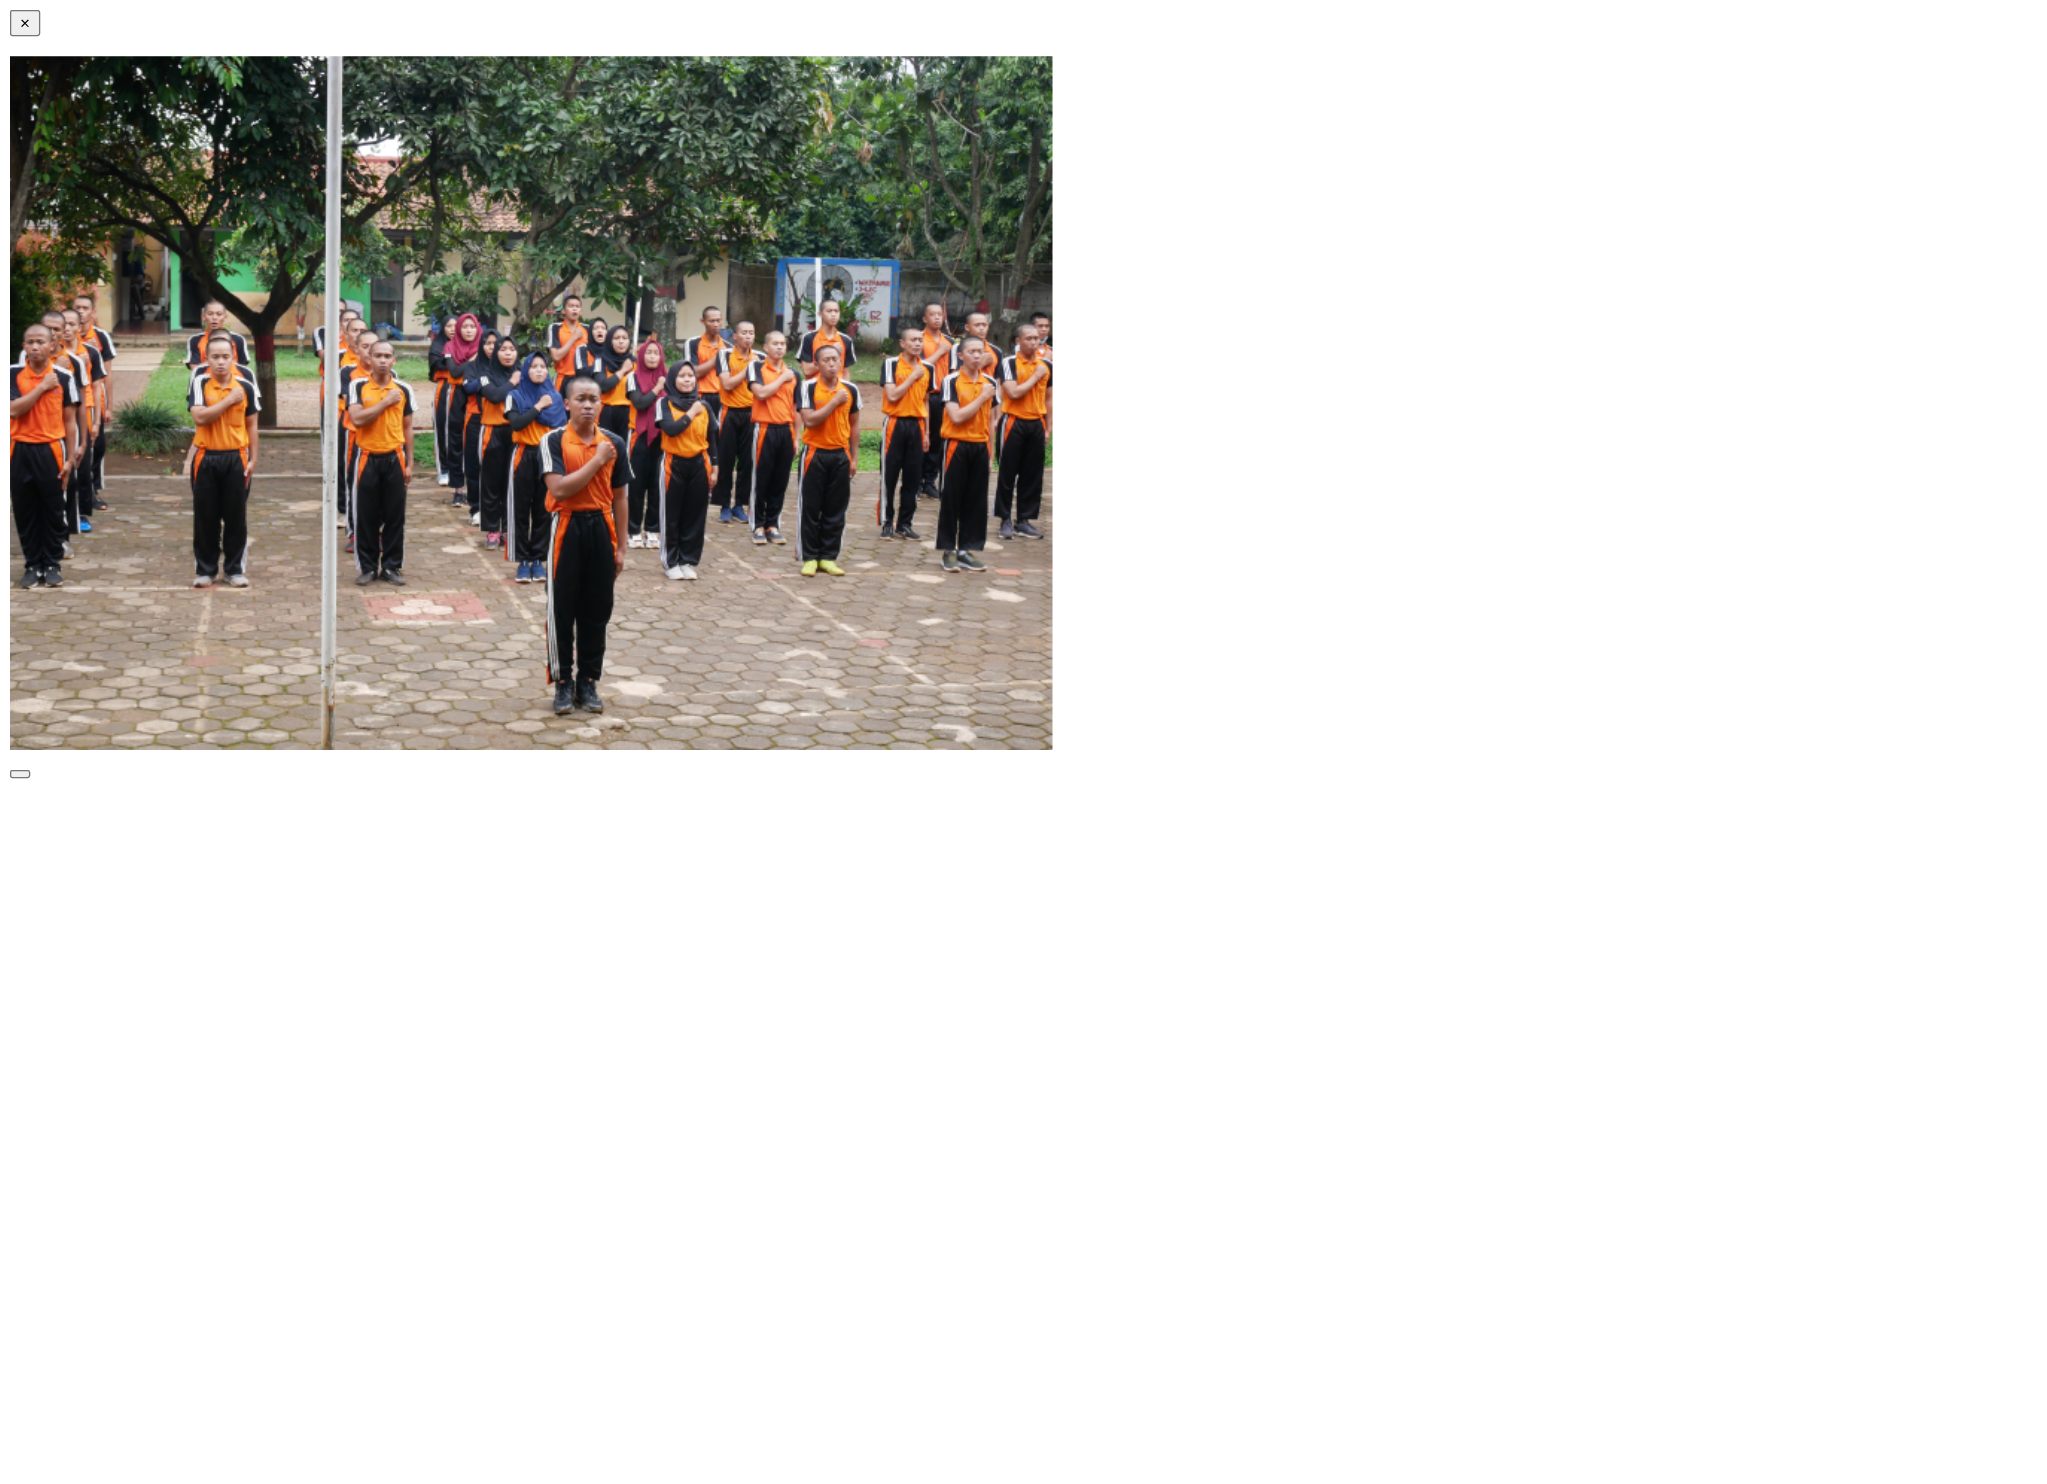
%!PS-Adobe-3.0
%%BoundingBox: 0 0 2047 1484
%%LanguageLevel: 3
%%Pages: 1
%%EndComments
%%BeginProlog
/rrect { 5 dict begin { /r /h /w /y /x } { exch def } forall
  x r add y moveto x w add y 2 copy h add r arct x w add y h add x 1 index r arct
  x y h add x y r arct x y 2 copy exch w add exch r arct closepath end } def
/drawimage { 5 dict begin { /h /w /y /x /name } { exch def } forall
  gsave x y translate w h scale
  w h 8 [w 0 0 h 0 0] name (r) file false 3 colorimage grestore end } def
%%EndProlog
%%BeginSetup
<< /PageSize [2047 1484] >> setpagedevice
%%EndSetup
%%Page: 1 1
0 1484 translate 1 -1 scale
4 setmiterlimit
1 setgray
0 0 2047 1484 rectfill
0.937 setgray
10.5 10.5 29 25 2 rrect gsave fill grestore
0.463 setgray
stroke
(images/1.raw) 10 56 1043 694 drawimage
0.937 setgray
10.5 770.5 19 7 2 rrect gsave fill grestore
0.463 setgray
stroke
/LiberationSans-Regular [17 0 0 -17 0 0] selectfont
0 setgray
20 29 moveto (×) show
showpage
%%EOF
